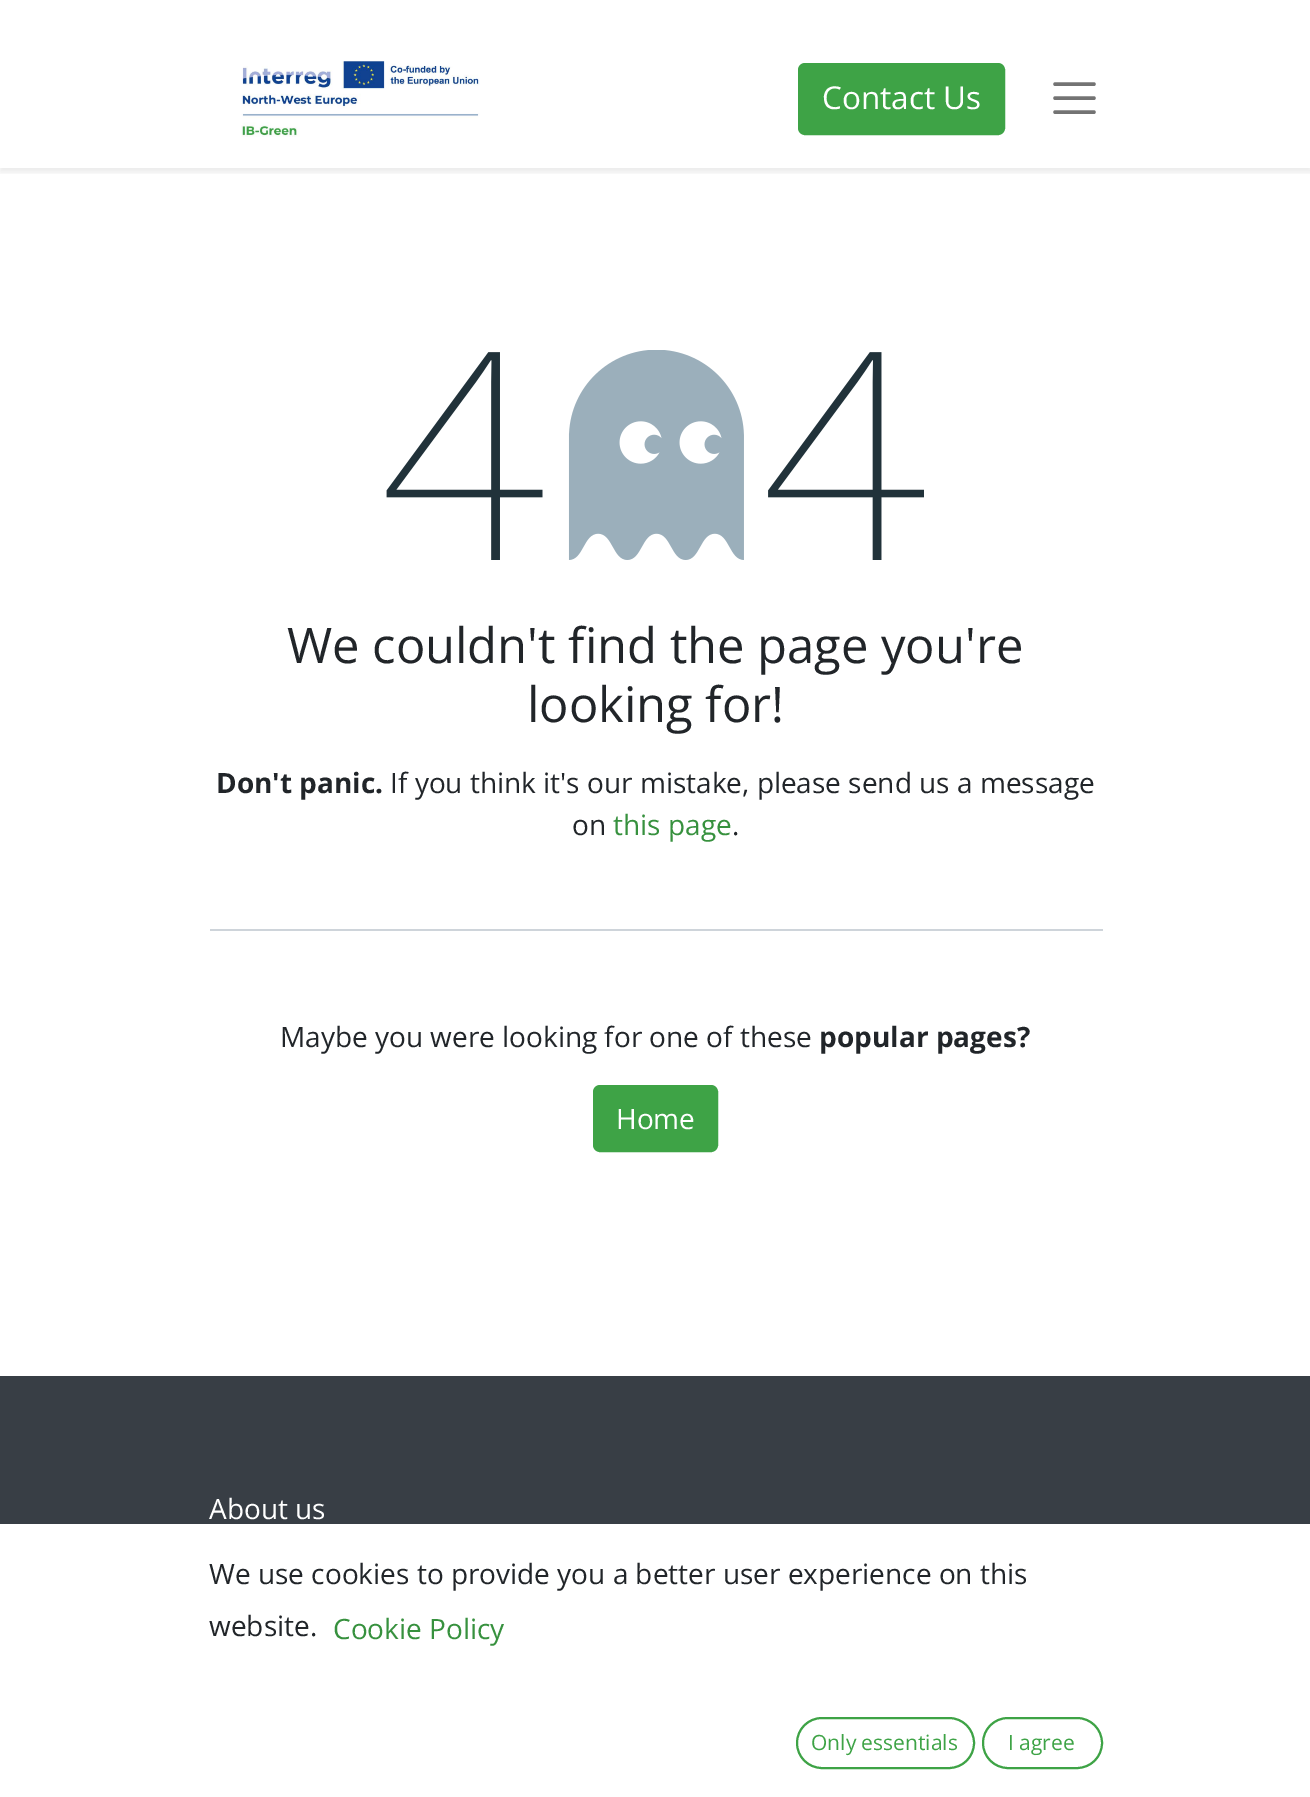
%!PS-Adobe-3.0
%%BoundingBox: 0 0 1310 1797
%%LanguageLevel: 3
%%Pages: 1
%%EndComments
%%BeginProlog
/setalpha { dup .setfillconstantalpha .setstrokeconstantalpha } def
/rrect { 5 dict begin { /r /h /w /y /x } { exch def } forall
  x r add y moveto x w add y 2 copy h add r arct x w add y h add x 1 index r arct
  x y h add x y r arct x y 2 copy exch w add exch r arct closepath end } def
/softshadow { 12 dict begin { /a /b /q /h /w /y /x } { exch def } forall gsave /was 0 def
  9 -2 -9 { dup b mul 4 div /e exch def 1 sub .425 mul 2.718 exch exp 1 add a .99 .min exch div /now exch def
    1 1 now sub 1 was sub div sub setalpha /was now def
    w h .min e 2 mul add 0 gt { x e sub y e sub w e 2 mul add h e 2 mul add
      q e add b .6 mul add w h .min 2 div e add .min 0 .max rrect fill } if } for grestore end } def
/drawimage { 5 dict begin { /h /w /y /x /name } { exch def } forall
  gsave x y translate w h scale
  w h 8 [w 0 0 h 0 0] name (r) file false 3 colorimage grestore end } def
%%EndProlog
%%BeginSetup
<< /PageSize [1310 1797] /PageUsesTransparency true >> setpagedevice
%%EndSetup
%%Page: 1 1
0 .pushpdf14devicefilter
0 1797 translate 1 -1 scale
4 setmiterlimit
1 setgray
0 0 1310 1797 rectfill
gsave
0 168 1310 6 rectclip
0 setgray
0 4 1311 168 0 3.5 0.08 softshadow
grestore
(images/1.raw) 241 61 239 76 drawimage
0.243 0.639 0.275 setrgbcolor
799 64 205 70 6 rrect gsave fill grestore
2 setlinewidth
stroke
0.451 setgray
3.5 setlinewidth
1 setlinecap
newpath 1055 84 moveto 1094 84 lineto 1055 98 moveto 1094 98 lineto 1055 112 moveto 1094 112 lineto stroke
(images/2.raw) 386 350 538 210 drawimage
0.808 0.831 0.855 setrgbcolor
210 929 893 2 rectfill
0.243 0.639 0.275 setrgbcolor
594 1086 123 65 6 rrect gsave fill grestore
2 setlinewidth
0 setlinecap
stroke
0.22 0.243 0.271 setrgbcolor
0 1376 1310 148 rectfill
0.243 0.639 0.275 setrgbcolor
797 1718 177 50 25 rrect stroke
983 1718 119 50 25 rrect stroke
/OpenSans-Regular [31.5 0 0 -31.5 0 0] selectfont
1 setgray
822 109 moveto (Contact Us) show
/OpenSans-Regular [48.9 0 0 -48.9 0 0] selectfont
0.129 0.145 0.161 setrgbcolor
287 663 moveto (We couldn't find the page you're) show
527 722 moveto (looking for!) show
/OpenSans-Bold [28 0 0 -28 0 0] selectfont
216 793 moveto (Don't panic.) show
/OpenSans-Regular [28 0 0 -28 0 0] selectfont
390 793 moveto (If you think it's our mistake, please send us a message) show
572 835 moveto (on) show
0.216 0.569 0.243 setrgbcolor
613 835 moveto (this page) show
0.129 0.145 0.161 setrgbcolor
732 835 moveto (.) show
280 1047 moveto (Maybe you were looking for one of these) show
/OpenSans-Bold [28 0 0 -28 0 0] selectfont
819 1047 moveto (popular pages?) show
/OpenSans-Regular [28 0 0 -28 0 0] selectfont
1 setgray
616 1129 moveto (Home) show
209 1519 moveto (About us) show
0.129 0.145 0.161 setrgbcolor
209 1584 moveto (We use cookies to provide you a better user experience on this) show
209 1636 moveto (website.) show
0.216 0.569 0.243 setrgbcolor
333 1639 moveto (Cookie Policy) show
/OpenSans-Regular [21 0 0 -21 0 0] selectfont
0.243 0.639 0.275 setrgbcolor
811 1750 moveto (Only essentials) show
1008 1750 moveto (I agree) show
.poppdf14devicefilter showpage
%%EOF
